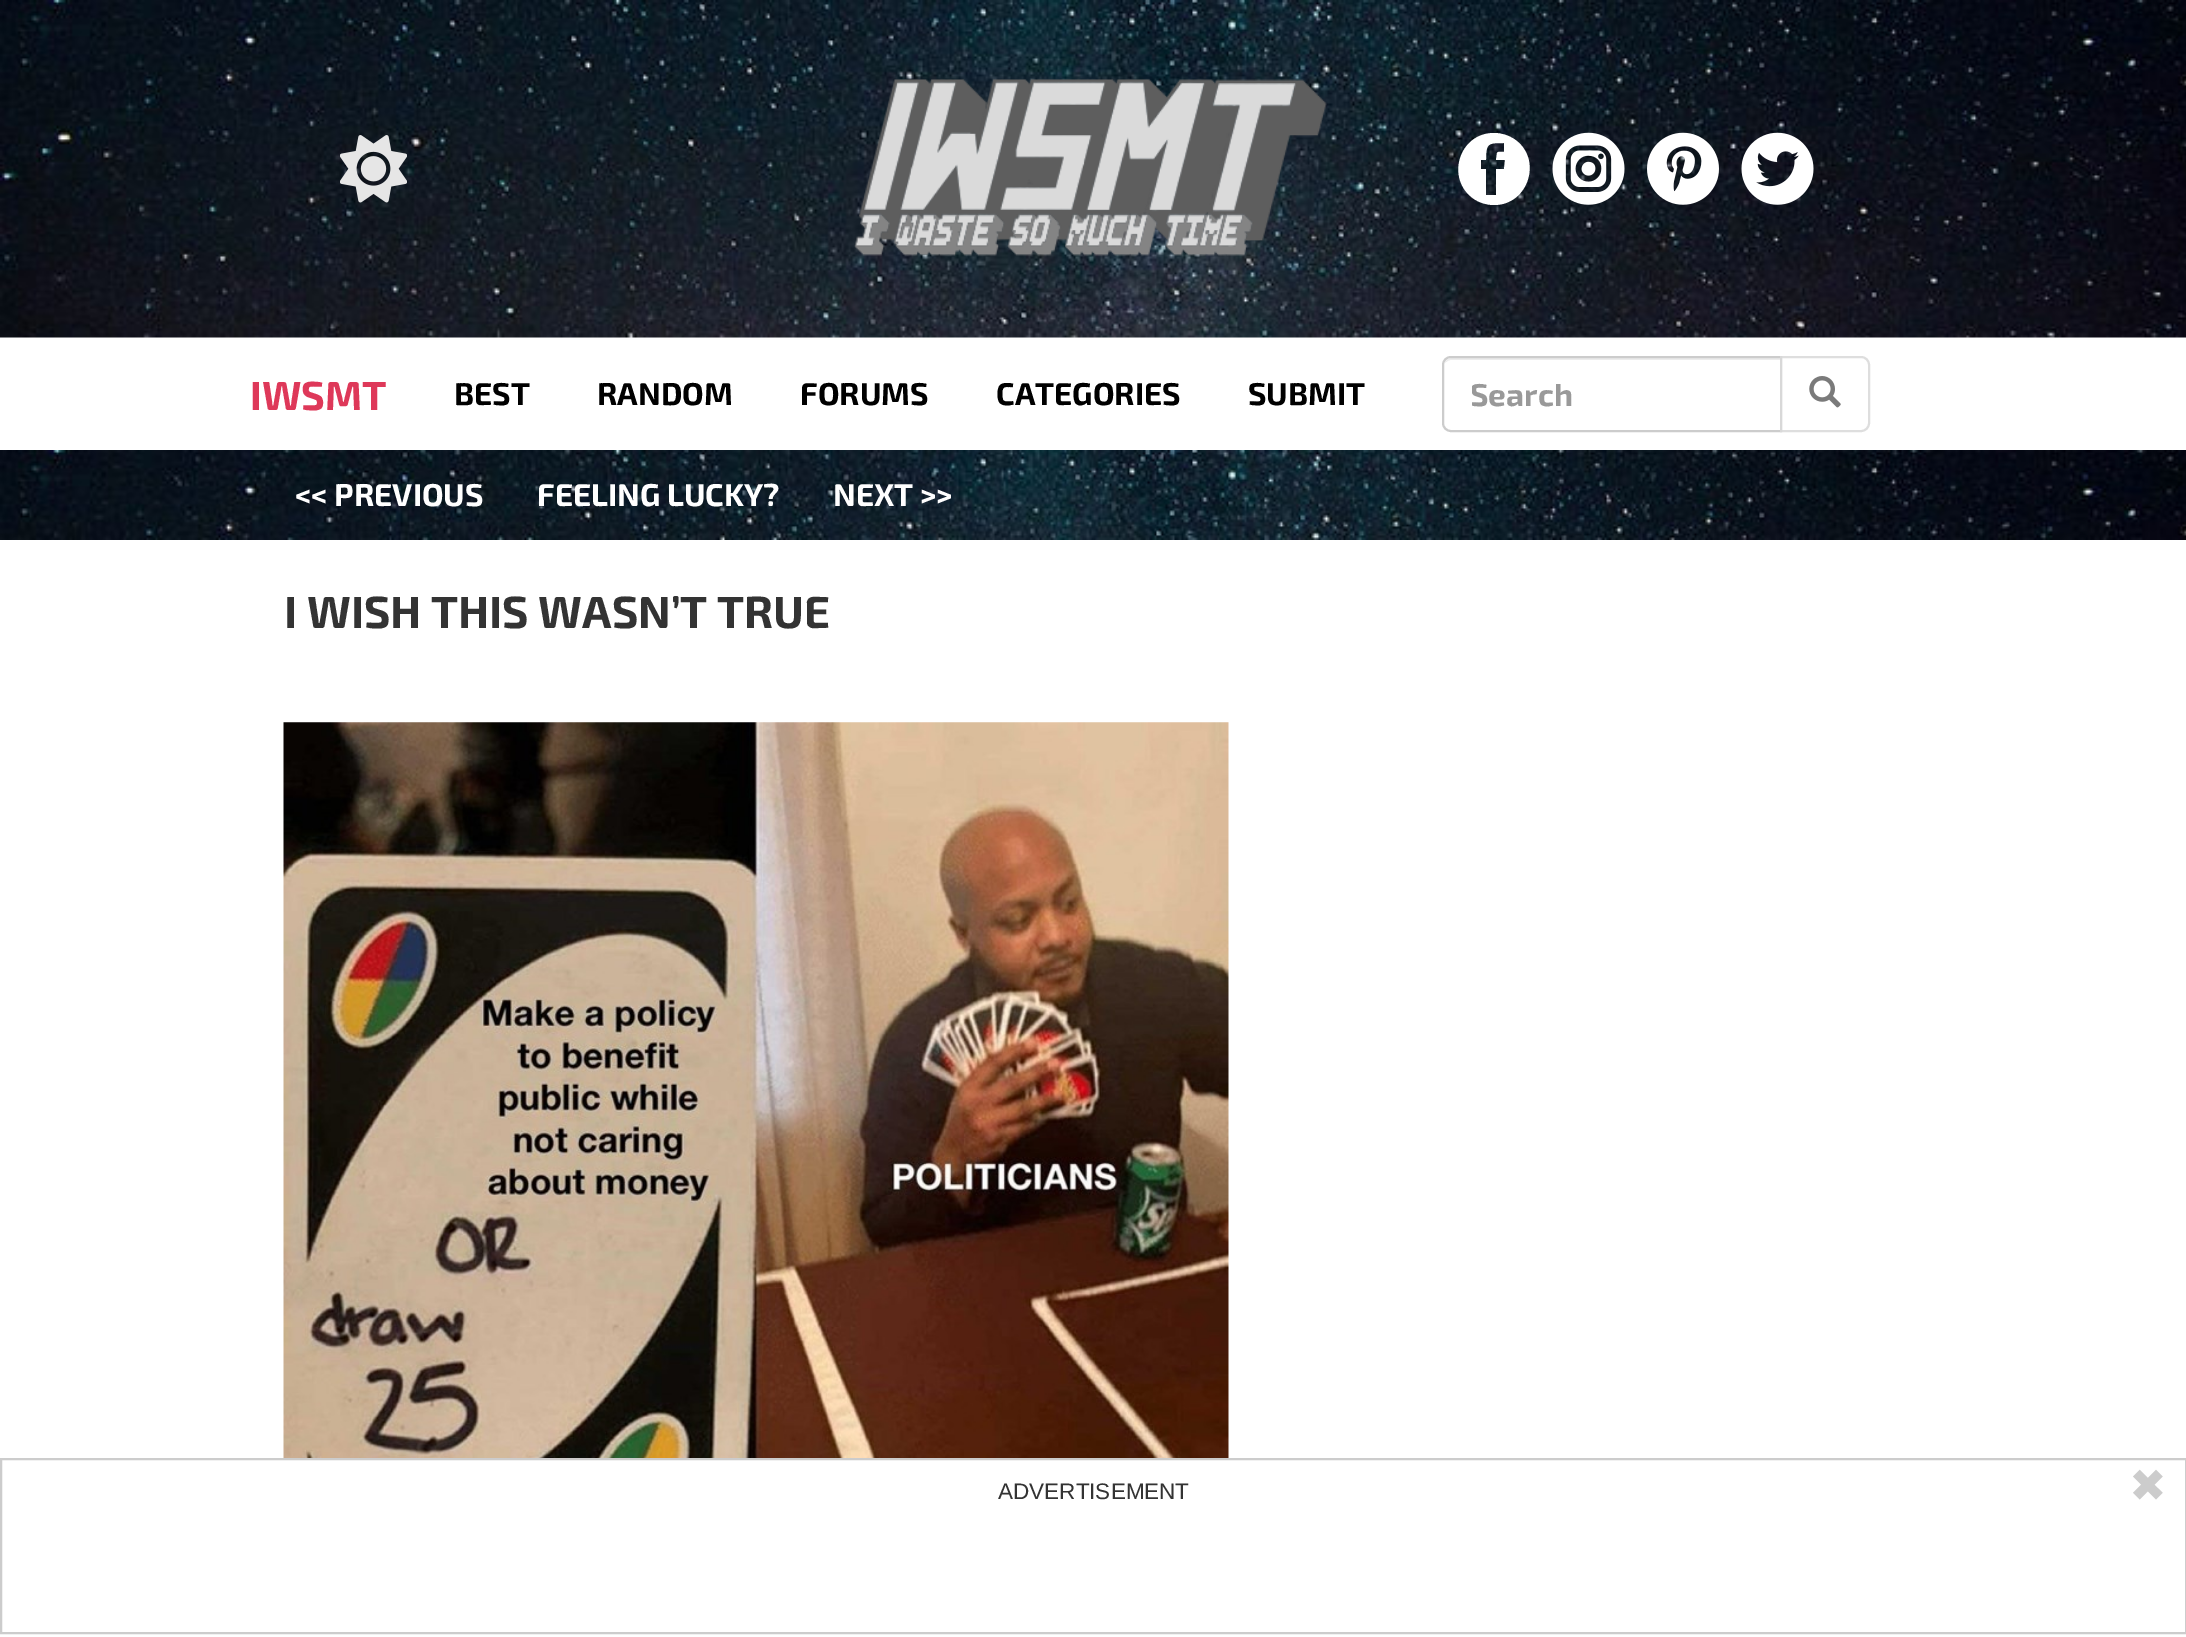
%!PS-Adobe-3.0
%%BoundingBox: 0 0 2186 1637
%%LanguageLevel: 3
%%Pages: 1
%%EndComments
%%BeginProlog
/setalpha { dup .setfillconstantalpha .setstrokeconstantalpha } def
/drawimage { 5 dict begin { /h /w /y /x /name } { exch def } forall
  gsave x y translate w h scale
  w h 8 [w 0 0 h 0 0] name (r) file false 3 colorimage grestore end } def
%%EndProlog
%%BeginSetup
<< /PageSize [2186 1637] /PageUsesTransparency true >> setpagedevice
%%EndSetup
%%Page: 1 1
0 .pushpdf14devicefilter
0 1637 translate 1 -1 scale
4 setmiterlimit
1 setgray
0 0 2186 1637 rectfill
(images/1.raw) 0 0 2186 338 drawimage
(images/2.raw) 854 79 473 177 drawimage
(images/3.raw) 340 135 67 68 drawimage
newpath 1494 133 moveto 1459 133 1445 179 1474 199 curveto 1480 203 1487 205 1494 205 curveto 1529 205 1543 158 1514 139 curveto 1508 135 1501 133 1494 133 curveto closepath 1504 169 moveto 1496 169 lineto 1496 195 lineto 1486 195 lineto 1486 169 lineto 1481 169 lineto 1481 160 lineto 1486 160 lineto 1486 143 1488 143 1504 143 curveto 1504 152 lineto 1503 152 1498 151 1497 153 curveto 1496 160 lineto 1505 160 lineto closepath fill
(images/4.raw) 1552 132 73 73 drawimage
(images/5.raw) 1647 132 72 73 drawimage
(images/6.raw) 1741 132 73 73 drawimage
0.925 setgray
newpath 1451 360 moveto 1780 360 lineto 1780 358 lineto 1452 358 lineto 1449 358 1446 360 1445 363 curveto 1447 361 1449 360 1451 360 curveto closepath fill
0.8 setgray
2 setlinewidth
newpath 1451 357 moveto 1781 357 lineto 1781 431 lineto 1451 431 lineto 1446.5 431 1443 427.5 1443 423 curveto 1443 365 lineto 1443 360.5 1446.5 357 1451 357 curveto closepath stroke
0.65 setalpha
1 setgray
newpath 1780 356 moveto 1861 356 lineto 1866 356 1870 360 1870 365 curveto 1870 423 lineto 1870 428 1866 432 1861 432 curveto 1780 432 lineto closepath fill
0.8 setgray
newpath 1781 357 moveto 1861 357 lineto 1865.5 357 1869 360.5 1869 365 curveto 1869 423 lineto 1869 427.5 1865.5 431 1861 431 curveto 1781 431 lineto closepath stroke
1 setalpha
(images/7.raw) 1809 376 32 32 drawimage
(images/8.raw) 0 450 2186 90 drawimage
(images/9.raw) 283 722 946 736 drawimage
1 1459 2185 174 rectstroke
/Exo2-Bold [40.5 0 0 -40.5 0 0] selectfont
0.871 0.22 0.349 setrgbcolor
250 410 moveto (IWSMT) show
/Exo2-Bold [31.5 0 0 -31.5 0 0] selectfont
0 setgray
454 405 moveto (BEST) show
597 405 moveto (RANDOM) show
800 405 moveto (FORUMS) show
996 405 moveto (CATEGORIES) show
1248 405 moveto (SUBMIT) show
gsave
1472 376 281 38 rectclip
0.6 setgray
1470 406 moveto (Search) show
grestore
1 setgray
295 506 moveto (<< PREVIOUS) show
537 506 moveto (FEELING LUCKY?) show
833 506 moveto (NEXT >>) show
/Exo2-Bold [45 0 0 -45 0 0] selectfont
0.2 setgray
284 628 moveto (I WISH THIS WASN’T TRUE) show
/LiberationSans-Regular [22.5 0 0 -22.5 0 0] selectfont
998 1499 moveto (ADVERTISEMENT) show
/DejaVuSans-Regular [45 0 0 -45 0 0] selectfont
0.8 setgray
2129 1501 moveto (✖) show
.poppdf14devicefilter showpage
%%EOF
